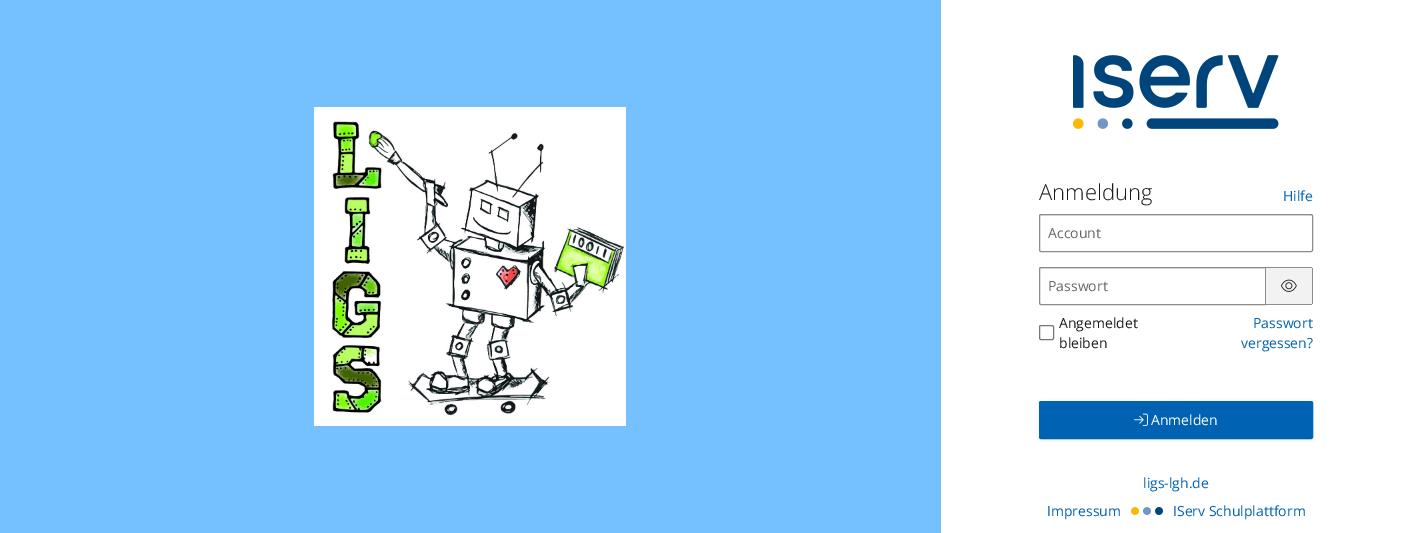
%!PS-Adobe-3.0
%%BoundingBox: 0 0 1411 533
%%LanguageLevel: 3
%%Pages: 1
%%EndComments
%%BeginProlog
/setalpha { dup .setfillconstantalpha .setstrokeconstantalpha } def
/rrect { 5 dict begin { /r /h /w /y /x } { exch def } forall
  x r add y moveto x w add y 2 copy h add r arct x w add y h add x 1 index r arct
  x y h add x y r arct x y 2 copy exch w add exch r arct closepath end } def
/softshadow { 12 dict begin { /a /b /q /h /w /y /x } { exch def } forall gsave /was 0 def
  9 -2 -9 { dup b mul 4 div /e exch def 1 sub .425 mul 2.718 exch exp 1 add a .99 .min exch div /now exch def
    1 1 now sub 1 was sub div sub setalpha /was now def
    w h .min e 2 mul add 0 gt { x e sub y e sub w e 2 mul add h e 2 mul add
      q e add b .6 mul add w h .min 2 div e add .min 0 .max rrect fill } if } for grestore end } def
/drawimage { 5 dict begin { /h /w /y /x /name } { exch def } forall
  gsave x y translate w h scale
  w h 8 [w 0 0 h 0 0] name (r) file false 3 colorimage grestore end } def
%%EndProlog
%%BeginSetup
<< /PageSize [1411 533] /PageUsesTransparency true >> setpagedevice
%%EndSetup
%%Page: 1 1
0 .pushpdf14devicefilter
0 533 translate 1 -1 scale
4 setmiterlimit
1 setgray
0 0 1411 533 rectfill
0.459 0.757 1 setrgbcolor
0 0 941 533 rectfill
(images/1.raw) 314 107 312 319 drawimage
(images/2.raw) 1073 55 206 74 drawimage
0.925 setgray
newpath 1041 216 moveto 1311 216 lineto 1312 216 1312 216 1312 217 curveto 1312 216 1312 215 1311 215 curveto 1041 215 lineto 1040 215 lineto 1040 217 lineto 1040 216 1040 216 1041 216 curveto closepath fill
0.549 setgray
1039.5 214.5 273 37 1.5 rrect stroke
0.925 setgray
newpath 1041 269 moveto 1265 269 lineto 1265 268 lineto 1041 268 lineto 1040 268 1040 269 1040 270 curveto closepath fill
0.549 setgray
newpath 1041 267.5 moveto 1265.5 267.5 lineto 1265.5 304.5 lineto 1041 304.5 lineto 1040 304.5 1039.5 304 1039.5 303 curveto 1039.5 269 lineto 1039.5 268 1040 267.5 1041 267.5 curveto closepath stroke
0.949 setgray
newpath 1266 267 moveto 1311 267 lineto 1312 267 1313 268 1313 269 curveto 1313 303 lineto 1313 304 1312 305 1311 305 curveto 1266 305 lineto closepath fill
0.549 setgray
1266 267 46 1 rectfill
1312 268 1 36 rectfill
1266 304 46 1 rectfill
(images/3.raw) 1281 279 16 13 drawimage
0.463 setgray
1039.5 325.5 14 14 1.5 rrect stroke
0 setgray
1039 402 274 38 2 1.5 0.08 softshadow
0 0.384 0.702 setrgbcolor
1039.5 401.5 273 37 1.5 rrect gsave fill grestore
stroke
(images/4.raw) 1134 413 14 13 drawimage
(images/5.raw) 1131 507 8 8 drawimage
(images/6.raw) 1143 507 8 8 drawimage
(images/7.raw) 1155 507 8 8 drawimage
/OpenSans-Light [22 0 0 -22 0 0] selectfont
0.102 setgray
1039 200 moveto (Anmeldung) show
/OpenSans-Regular [14 0 0 -14 0 0] selectfont
0 0.384 0.702 setrgbcolor
1283 201 moveto (Hilfe) show
0.4 setgray
1048 238 moveto (Account) show
1048 291 moveto (Passwort) show
0.102 setgray
1059 328 moveto (Angemeldet) show
1059 348 moveto (bleiben) show
0 0.384 0.702 setrgbcolor
1253 328 moveto (Passwort) show
1241 348 moveto (vergessen?) show
1 setgray
1151 425 moveto (Anmelden) show
0 0.384 0.702 setrgbcolor
1143 488 moveto (ligs-lgh.de) show
1047 516 moveto (Impressum) show
1173 516 moveto (IServ Schulplattform) show
.poppdf14devicefilter showpage
%%EOF
